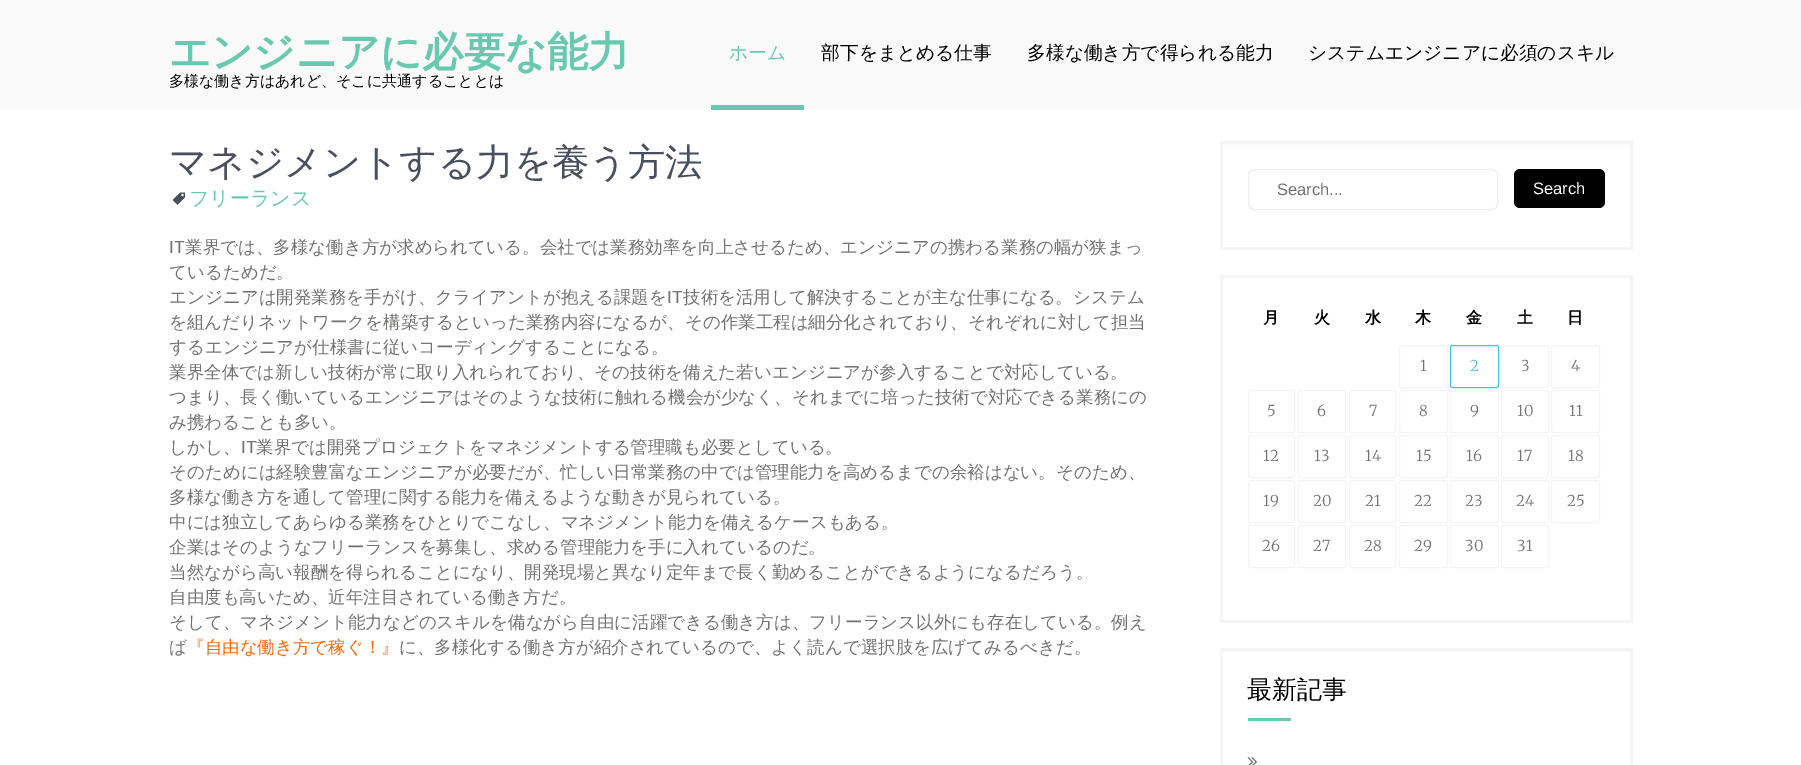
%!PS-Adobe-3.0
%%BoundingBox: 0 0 1801 765
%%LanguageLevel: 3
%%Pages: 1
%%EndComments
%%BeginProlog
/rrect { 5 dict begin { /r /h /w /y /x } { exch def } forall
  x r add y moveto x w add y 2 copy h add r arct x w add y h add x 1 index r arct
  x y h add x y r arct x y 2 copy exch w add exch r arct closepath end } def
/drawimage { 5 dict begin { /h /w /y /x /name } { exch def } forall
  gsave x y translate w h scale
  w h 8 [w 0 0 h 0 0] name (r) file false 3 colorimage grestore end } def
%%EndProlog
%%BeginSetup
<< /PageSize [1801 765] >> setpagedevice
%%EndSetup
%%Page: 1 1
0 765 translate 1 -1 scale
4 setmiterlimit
1 setgray
0 0 1801 765 rectfill
0.976 setgray
0 0 1801 110 rectfill
0.408 0.788 0.69 setrgbcolor
711 105 93 5 rectfill
(images/1.raw) 172 192 13 13 drawimage
0.965 0.957 0.957 setrgbcolor
3 setlinewidth
1221.5 142.5 410 106 rectstroke
0.933 setgray
1 setlinewidth
1248.5 169.5 249 40 5.5 rrect stroke
0 setgray
1514 169 91 39 6 rrect fill
0.965 0.957 0.957 setrgbcolor
3 setlinewidth
1221.5 276.5 410 345 rectstroke
0.957 setgray
1 setlinewidth
1399.5 345.5 48 42 2 rrect stroke
0.278 0.761 0.863 setrgbcolor
1450.5 345.5 48 42 2 rrect stroke
0.957 setgray
1501.5 345.5 47 42 2 rrect stroke
1551.5 345.5 48 42 2 rrect stroke
1248.5 390.5 46 42 2 rrect stroke
1298.5 390.5 47 42 2 rrect stroke
1349.5 390.5 46 42 2 rrect stroke
1399.5 390.5 48 42 2 rrect stroke
1450.5 390.5 48 42 2 rrect stroke
1501.5 390.5 47 42 2 rrect stroke
1551.5 390.5 48 42 2 rrect stroke
1248.5 435.5 46 42 2 rrect stroke
1298.5 435.5 47 42 2 rrect stroke
1349.5 435.5 46 42 2 rrect stroke
1399.5 435.5 48 42 2 rrect stroke
1450.5 435.5 48 42 2 rrect stroke
1501.5 435.5 47 42 2 rrect stroke
1551.5 435.5 48 42 2 rrect stroke
1248.5 480.5 46 42 2 rrect stroke
1298.5 480.5 47 42 2 rrect stroke
1349.5 480.5 46 42 2 rrect stroke
1399.5 480.5 48 42 2 rrect stroke
1450.5 480.5 48 42 2 rrect stroke
1501.5 480.5 47 42 2 rrect stroke
1551.5 480.5 48 42 2 rrect stroke
1248.5 525.5 46 42 2 rrect stroke
1298.5 525.5 47 42 2 rrect stroke
1349.5 525.5 46 42 2 rrect stroke
1399.5 525.5 48 42 2 rrect stroke
1450.5 525.5 48 42 2 rrect stroke
1501.5 525.5 47 42 2 rrect stroke
0.965 0.957 0.957 setrgbcolor
3 setlinewidth
1221.5 649.5 410 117 rectstroke
0.408 0.788 0.69 setrgbcolor
1248 718 43 3 rectfill
(images/2.raw) 1247 757 10 8 drawimage
/WenQuanYiZenHei-Bold [41.25 0 0 -41.25 0 0] selectfont
169 66 moveto (エンジニアに必要な能力) show
/WenQuanYiZenHei-Medium [15 0 0 -15 0 0] selectfont
0 setgray
169 86 moveto (多様な働き方はあれど、そこに共通することとは) show
/WenQuanYiZenHei-Medium [18.75 0 0 -18.75 0 0] selectfont
0.408 0.788 0.69 setrgbcolor
729 59 moveto (ホーム) show
0 setgray
821 59 moveto (部下をまとめる仕事) show
1027 59 moveto (多様な働き方で得られる能力) show
1308 59 moveto (システムエンジニアに必須のスキル) show
/WenQuanYiZenHei-Medium [37.5 0 0 -37.5 0 0] selectfont
0.282 0.31 0.369 setrgbcolor
169 175 moveto (マネジメントする力を養う方法) show
/WenQuanYiZenHei-Medium [20 0 0 -20 0 0] selectfont
0.408 0.788 0.69 setrgbcolor
189 205 moveto (フリーランス) show
/LiberationSans-Regular [17.5 0 0 -17.5 0 0] selectfont
0.447 0.451 0.439 setrgbcolor
169 253 moveto (IT) show
/WenQuanYiZenHei-Medium [17.5 0 0 -17.5 0 0] selectfont
185 253 moveto (業界では、多様な働き方が求められている。会社では業務効率を向上させるため、エンジニアの携わる業務の幅が狭まっ) show
169 278 moveto (ているためだ。) show
169 303 moveto (エンジニアは開発業務を手がけ、クライアントが抱える課題を) show
/LiberationSans-Regular [17.5 0 0 -17.5 0 0] selectfont
667 303 moveto (IT) show
/WenQuanYiZenHei-Medium [17.5 0 0 -17.5 0 0] selectfont
683 303 moveto (技術を活用して解決することが主な仕事になる。システム) show
169 328 moveto (を組んだりネットワークを構築するといった業務内容になるが、その作業工程は細分化されており、それぞれに対して担当) show
169 353 moveto (するエンジニアが仕様書に従いコーディングすることになる。) show
169 378 moveto (業界全体では新しい技術が常に取り入れられており、その技術を備えた若いエンジニアが参入することで対応している。) show
169 403 moveto (つまり、長く働いているエンジニアはそのような技術に触れる機会が少なく、それまでに培った技術で対応できる業務にの) show
169 428 moveto (み携わることも多い。) show
169 453 moveto (しかし、) show
/LiberationSans-Regular [17.5 0 0 -17.5 0 0] selectfont
241 453 moveto (IT) show
/WenQuanYiZenHei-Medium [17.5 0 0 -17.5 0 0] selectfont
256 453 moveto (業界では開発プロジェクトをマネジメントする管理職も必要としている。) show
169 478 moveto (そのためには経験豊富なエンジニアが必要だが、忙しい日常業務の中では管理能力を高めるまでの余裕はない。そのため、) show
169 503 moveto (多様な働き方を通して管理に関する能力を備えるような動きが見られている。) show
169 528 moveto (中には独立してあらゆる業務をひとりでこなし、マネジメント能力を備えるケースもある。) show
169 553 moveto (企業はそのようなフリーランスを募集し、求める管理能力を手に入れているのだ。) show
169 578 moveto (当然ながら高い報酬を得られることになり、開発現場と異なり定年まで長く勤めることができるようになるだろう。) show
169 603 moveto (自由度も高いため、近年注目されている働き方だ。) show
169 628 moveto (そして、マネジメント能力などのスキルを備ながら自由に活躍できる働き方は、フリーランス以外にも存在している。例え) show
169 653 moveto (ば) show
1 0.4 0 setrgbcolor
187 653 moveto (『自由な働き方で稼ぐ！』) show
0.447 0.451 0.439 setrgbcolor
399 653 moveto (に、多様化する働き方が紹介されているので、よく読んで選択肢を広げてみるべきだ。) show
/LiberationSans-Regular [16.5 0 0 -16.5 0 0] selectfont
1277 195 moveto (Search...) show
1 setgray
1533 194 moveto (Search) show
/WenQuanYiZenHei-Bold [16 0 0 -16 0 0] selectfont
0 setgray
1263 323 moveto (月) show
1314 323 moveto (火) show
1365 323 moveto (水) show
1415 323 moveto (木) show
1466 323 moveto (金) show
1517 323 moveto (土) show
1567 323 moveto (日) show
/Merriweather-Light [15 0 0 -15 0 0] selectfont
0.447 0.451 0.439 setrgbcolor
1420 371 moveto (1) show
0.278 0.761 0.863 setrgbcolor
1470 371 moveto (2) show
0.447 0.451 0.439 setrgbcolor
1521 371 moveto (3) show
1571 371 moveto (4) show
1267 416 moveto (5) show
1317 416 moveto (6) show
1369 416 moveto (7) show
1419 416 moveto (8) show
1470 416 moveto (9) show
1517 416 moveto (10) show
1569 416 moveto (11) show
1263 461 moveto (12) show
1314 461 moveto (13) show
1365 461 moveto (14) show
1416 461 moveto (15) show
1466 461 moveto (16) show
1517 461 moveto (17) show
1568 461 moveto (18) show
1263 506 moveto (19) show
1313 506 moveto (20) show
1365 506 moveto (21) show
1414 506 moveto (22) show
1465 506 moveto (23) show
1516 506 moveto (24) show
1567 506 moveto (25) show
1262 551 moveto (26) show
1313 551 moveto (27) show
1364 551 moveto (28) show
1414 551 moveto (29) show
1465 551 moveto (30) show
1517 551 moveto (31) show
/WenQuanYiZenHei-Medium [25 0 0 -25 0 0] selectfont
0 setgray
1247 698 moveto (最新記事) show
showpage
%%EOF
